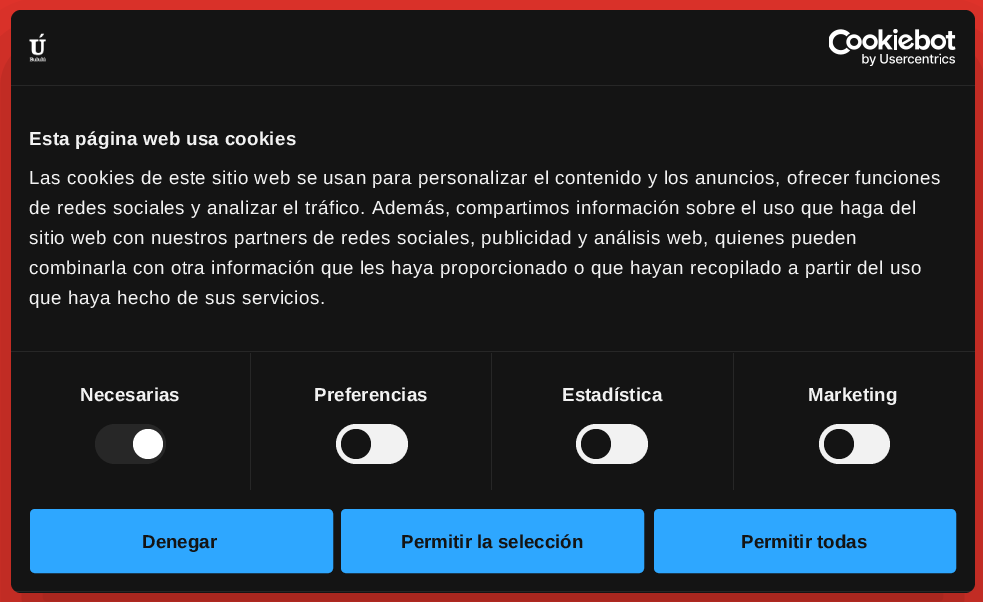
%!PS-Adobe-3.0
%%BoundingBox: 0 0 983 602
%%LanguageLevel: 3
%%Pages: 1
%%EndComments
%%BeginProlog
/setalpha { dup .setfillconstantalpha .setstrokeconstantalpha } def
/rrect { 5 dict begin { /r /h /w /y /x } { exch def } forall
  x r add y moveto x w add y 2 copy h add r arct x w add y h add x 1 index r arct
  x y h add x y r arct x y 2 copy exch w add exch r arct closepath end } def
/softshadow { 12 dict begin { /a /b /q /h /w /y /x } { exch def } forall gsave /was 0 def
  9 -2 -9 { dup b mul 4 div /e exch def 1 sub .425 mul 2.718 exch exp 1 add a .99 .min exch div /now exch def
    1 1 now sub 1 was sub div sub setalpha /was now def
    w h .min e 2 mul add 0 gt { x e sub y e sub w e 2 mul add h e 2 mul add
      q e add b .6 mul add w h .min 2 div e add .min 0 .max rrect fill } if } for grestore end } def
/drawimage { 5 dict begin { /h /w /y /x /name } { exch def } forall
  gsave x y translate w h scale
  w h 8 [w 0 0 h 0 0] name (r) file false 3 colorimage grestore end } def
%%EndProlog
%%BeginSetup
<< /PageSize [983 602] /PageUsesTransparency true >> setpagedevice
%%EndSetup
%%Page: 1 1
0 .pushpdf14devicefilter
0 602 translate 1 -1 scale
4 setmiterlimit
0.89 0.2 0.165 setrgbcolor
0 0 983 602 rectfill
0 setgray
11 50 964 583 10 42.5 0.3 softshadow
0.078 setgray
11 10 964 583 10 rrect fill
0.153 setgray
11 85 964 1 rectfill
(images/1.raw) 29 33 17 29 drawimage
(images/2.raw) 829 29 127 37 drawimage
11 351 964 1 rectfill
250 353 1 137 rectfill
95 424 71 40 20 rrect fill
1 setgray
newpath 148 444 15 0 360 arc closepath fill
0.153 setgray
491 353 1 137 rectfill
0.949 setgray
336 424 72 40 20 rrect fill
0.078 setgray
newpath 356 444 15 0 360 arc closepath fill
0.153 setgray
733 353 1 137 rectfill
0.949 setgray
576 424 72 40 20 rrect fill
0.078 setgray
newpath 596 444 15 0 360 arc closepath fill
0.949 setgray
819 424 71 40 20 rrect fill
0.078 setgray
newpath 839 444 15 0 360 arc closepath fill
gsave
11 10 964 583 10 rrect clip newpath
0.08 setalpha
1 setgray
11 591 964 1 rectfill
grestore
0.18 0.655 1 setrgbcolor
31.5 510.5 300 61 3.5 rrect gsave fill grestore
3 setlinewidth
stroke
342.5 510.5 300 61 3.5 rrect gsave fill grestore
stroke
655.5 510.5 299 61 3.5 rrect gsave fill grestore
stroke
/LiberationSans-Bold [18.75 0 0 -18.75 0 0] selectfont
0.949 setgray
29 145 moveto 0.3 0 (Esta página web usa cookies) ashow
/LiberationSans-Regular [18.75 0 0 -18.75 0 0] selectfont
29 184 moveto 0.62 0 (Las cookies de este sitio web se usan para personalizar el contenido y los anuncios, ofrecer funciones) ashow
29 214 moveto 0.62 0 (de redes sociales y analizar el tráfico. Además, compartimos información sobre el uso que haga del) ashow
29 244 moveto 0.62 0 (sitio web con nuestros partners de redes sociales, publicidad y análisis web, quienes pueden) ashow
29 274 moveto 0.62 0 (combinarla con otra información que les haya proporcionado o que hayan recopilado a partir del uso) ashow
29 304 moveto 0.62 0 (que haya hecho de sus servicios.) ashow
/LiberationSans-Bold [18.75 0 0 -18.75 0 0] selectfont
80 401 moveto 0.1 0 (Necesarias) ashow
314 401 moveto 0.1 0 (Preferencias) ashow
562 401 moveto 0.1 0 (Estadística) ashow
808 401 moveto 0.1 0 (Marketing) ashow
0.078 setgray
142 548 moveto (Denegar) show
401 548 moveto (Permitir la selección) show
741 548 moveto (Permitir todas) show
.poppdf14devicefilter showpage
%%EOF
